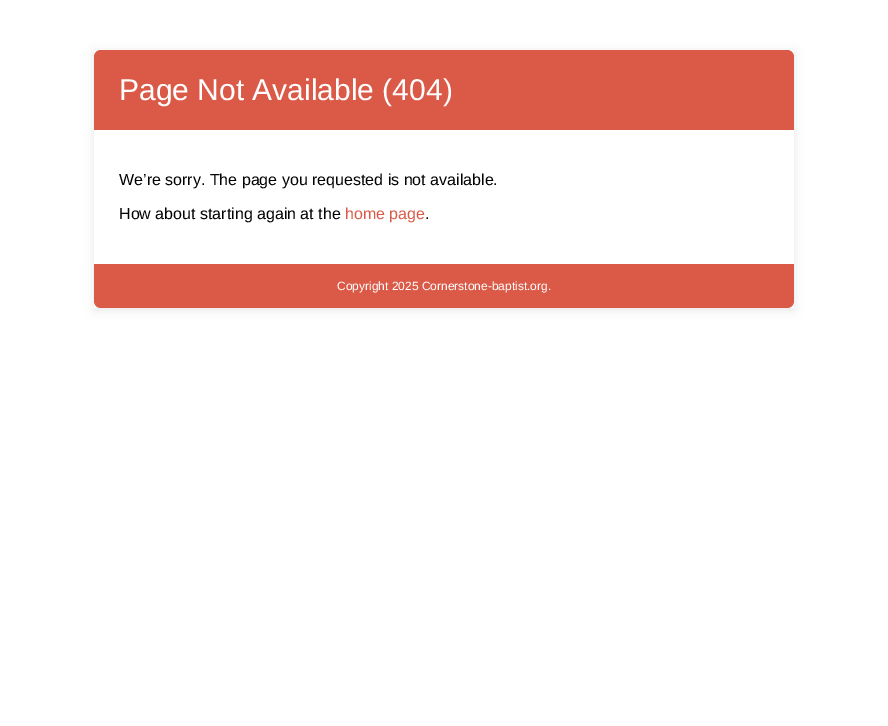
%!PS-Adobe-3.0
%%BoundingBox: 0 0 888 726
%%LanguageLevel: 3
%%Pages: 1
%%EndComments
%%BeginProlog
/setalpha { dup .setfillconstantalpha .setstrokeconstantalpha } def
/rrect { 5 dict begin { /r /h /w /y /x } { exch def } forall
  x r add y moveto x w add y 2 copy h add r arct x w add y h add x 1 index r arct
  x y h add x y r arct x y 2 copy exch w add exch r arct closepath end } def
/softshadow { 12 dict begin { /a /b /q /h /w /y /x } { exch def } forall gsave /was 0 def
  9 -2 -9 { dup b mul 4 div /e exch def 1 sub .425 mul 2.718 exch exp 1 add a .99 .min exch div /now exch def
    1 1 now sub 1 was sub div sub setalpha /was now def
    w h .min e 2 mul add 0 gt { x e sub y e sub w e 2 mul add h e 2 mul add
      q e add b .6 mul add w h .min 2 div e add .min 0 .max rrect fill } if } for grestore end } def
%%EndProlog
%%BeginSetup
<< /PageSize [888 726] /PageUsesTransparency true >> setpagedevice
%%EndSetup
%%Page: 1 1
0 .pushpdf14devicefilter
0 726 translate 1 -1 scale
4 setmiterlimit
1 setgray
0 0 888 726 rectfill
gsave
newpath 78 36 moveto 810 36 lineto 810 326 lineto 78 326 lineto closepath 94 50 moveto 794 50 lineto 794 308 lineto 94 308 lineto closepath eoclip newpath
0 setgray
94 52 700 258 0 5 0.1 softshadow
grestore
0.855 0.353 0.278 setrgbcolor
newpath 101 50 moveto 787 50 lineto 791 50 794 53 794 57 curveto 794 130 lineto 94 130 lineto 94 57 lineto 94 53 97 50 101 50 curveto closepath fill
newpath 94 264 moveto 794 264 lineto 794 301 lineto 794 305 791 308 787 308 curveto 101 308 lineto 97 308 94 305 94 301 curveto closepath fill
/LiberationSans-Regular [30 0 0 -30 0 0] selectfont
1 setgray
119 100 moveto (Page Not Available \(404\)) show
/LiberationSans-Regular [16 0 0 -16 0 0] selectfont
0 setgray
119 185 moveto (We’re sorry. The page you requested is not available.) show
119 219 moveto (How about starting again at the) show
0.855 0.353 0.278 setrgbcolor
345 219 moveto (home page) show
0 setgray
425 219 moveto (.) show
/LiberationSans-Regular [12 0 0 -12 0 0] selectfont
1 setgray
337 290 moveto (Copyright 2025 Cornerstone-baptist.org.) show
.poppdf14devicefilter showpage
%%EOF
